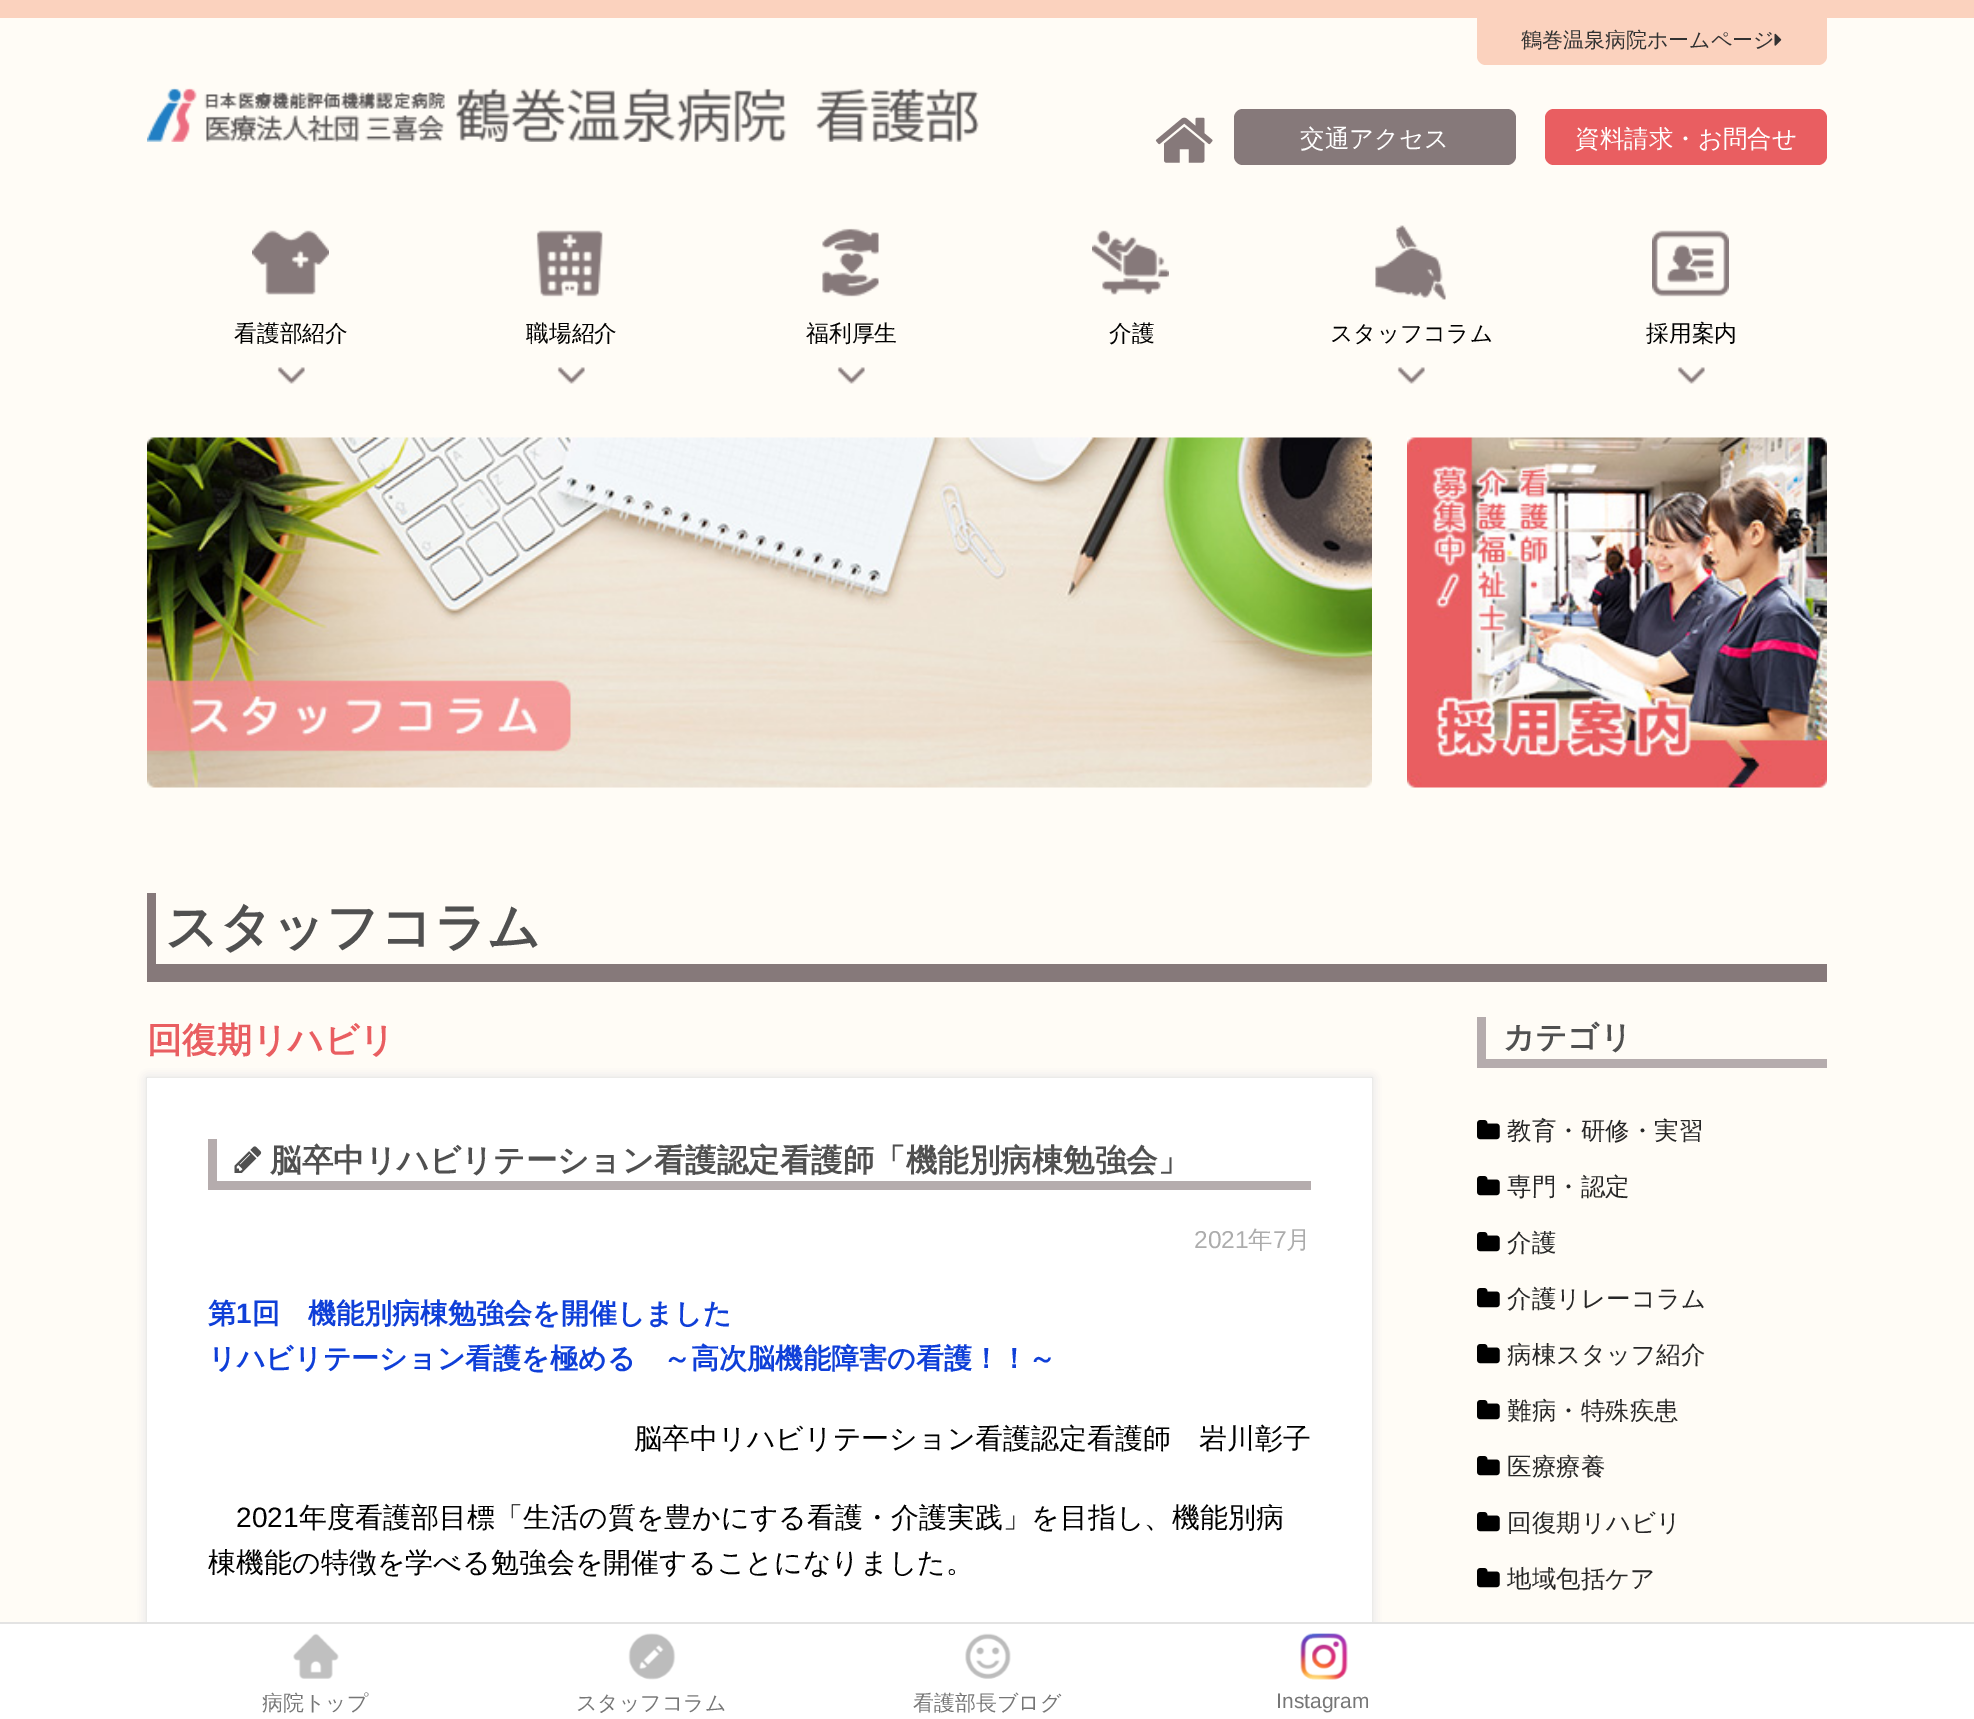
%!PS-Adobe-3.0
%%BoundingBox: 0 0 1974 1719
%%LanguageLevel: 3
%%Pages: 1
%%EndComments
%%BeginProlog
/setalpha { dup .setfillconstantalpha .setstrokeconstantalpha } def
/rrect { 5 dict begin { /r /h /w /y /x } { exch def } forall
  x r add y moveto x w add y 2 copy h add r arct x w add y h add x 1 index r arct
  x y h add x y r arct x y 2 copy exch w add exch r arct closepath end } def
/softshadow { 12 dict begin { /a /b /q /h /w /y /x } { exch def } forall gsave /was 0 def
  9 -2 -9 { dup b mul 4 div /e exch def 1 sub .425 mul 2.718 exch exp 1 add a .99 .min exch div /now exch def
    1 1 now sub 1 was sub div sub setalpha /was now def
    w h .min e 2 mul add 0 gt { x e sub y e sub w e 2 mul add h e 2 mul add
      q e add b .6 mul add w h .min 2 div e add .min 0 .max rrect fill } if } for grestore end } def
/drawimage { 5 dict begin { /h /w /y /x /name } { exch def } forall
  gsave x y translate w h scale
  w h 8 [w 0 0 h 0 0] name (r) file false 3 colorimage grestore end } def
%%EndProlog
%%BeginSetup
<< /PageSize [1974 1719] /PageUsesTransparency true >> setpagedevice
%%EndSetup
%%Page: 1 1
0 .pushpdf14devicefilter
0 1719 translate 1 -1 scale
4 setmiterlimit
1 0.988 0.965 setrgbcolor
0 0 1974 1719 rectfill
0.984 0.824 0.745 setrgbcolor
0 0 1974 18 rectfill
(images/1.raw) 147 87 832 55 drawimage
newpath 1477 18 moveto 1827 18 lineto 1827 56 lineto 1827 61 1823 65 1818 65 curveto 1486 65 lineto 1481 65 1477 61 1477 56 curveto closepath fill
(images/2.raw) 1774 33 8 13 drawimage
(images/3.raw) 1155 117 58 46 drawimage
0.525 0.475 0.478 setrgbcolor
1234 109 282 56 9 rrect fill
0.914 0.369 0.38 setrgbcolor
1545 109 282 56 9 rrect fill
(images/4.raw) 252 230 77 65 drawimage
(images/5.raw) 277 367 28 17 drawimage
(images/6.raw) 536 230 67 67 drawimage
(images/5.raw) 557 367 28 17 drawimage
(images/7.raw) 822 228 57 69 drawimage
(images/5.raw) 837 367 28 17 drawimage
(images/8.raw) 1092 230 77 65 drawimage
(images/9.raw) 1375 225 71 75 drawimage
(images/5.raw) 1397 367 28 17 drawimage
(images/10.raw) 1652 230 77 67 drawimage
(images/5.raw) 1677 367 28 17 drawimage
(images/11.raw) 147 437 1225 351 drawimage
(images/12.raw) 1407 437 420 351 drawimage
0.525 0.475 0.478 setrgbcolor
156 964 1671 18 rectfill
147 893 9 89 rectfill
0.667 setgray
147 1078 1225 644 0 1 1 softshadow
0.8 setgray
147 1078 1225 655 0 4.5 1 softshadow
1 setgray
147 1078 1225 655 0 4.5 1 softshadow
147 1078 1225 544 rectfill
0.71 0.675 0.678 setrgbcolor
217 1181 1094 9 rectfill
208 1139 9 51 rectfill
(images/13.raw) 234 1146 28 27 drawimage
1486 1059 341 9 rectfill
1477 1017 9 51 rectfill
(images/14.raw) 1477 1120 23 20 drawimage
(images/14.raw) 1477 1176 23 20 drawimage
(images/14.raw) 1477 1232 23 20 drawimage
(images/14.raw) 1477 1288 23 20 drawimage
(images/14.raw) 1477 1344 23 20 drawimage
(images/14.raw) 1477 1400 23 20 drawimage
(images/14.raw) 1477 1456 23 20 drawimage
(images/14.raw) 1477 1512 23 20 drawimage
(images/14.raw) 1477 1568 23 20 drawimage
1 setgray
0 1624 1974 95 rectfill
0.89 setgray
0 1622 1974 2 rectfill
(images/15.raw) 293 1633 46 46 drawimage
(images/16.raw) 628 1633 48 47 drawimage
(images/17.raw) 965 1633 46 46 drawimage
(images/18.raw) 1300 1633 48 47 drawimage
/WenQuanYiZenHei-Medium [21 0 0 -21 0 0] selectfont
0.196 setgray
1521 47 moveto (鶴巻温泉病院ホームページ) show
/WenQuanYiZenHei-Medium [24.5 0 0 -24.5 0 0] selectfont
1 setgray
1300 147 moveto (交通アクセス) show
1575 147 moveto (資料請求・お問合せ) show
/WenQuanYiZenHei-Medium [22.75 0 0 -22.75 0 0] selectfont
0 setgray
234 341 moveto (看護部紹介) show
526 341 moveto (職場紹介) show
806 341 moveto (福利厚生) show
1109 341 moveto (介護) show
1330 341 moveto (スタッフコラム) show
1646 341 moveto (採用案内) show
/WenQuanYiZenHei-Bold [52.5 0 0 -52.5 0 0] selectfont
0.314 setgray
165 945 moveto (スタッフコラム) show
/WenQuanYiZenHei-Bold [35 0 0 -35 0 0] selectfont
0.914 0.369 0.38 setrgbcolor
147 1052 moveto (回復期リハビリ) show
/WenQuanYiZenHei-Bold [31.5 0 0 -31.5 0 0] selectfont
0.314 setgray
270 1171 moveto (脳卒中リハビリテーション看護認定看護師「機能別病棟勉強会」) show
/LiberationSans-Regular [24.5 0 0 -24.5 0 0] selectfont
0.675 setgray
1194 1248 moveto (2021) show
/WenQuanYiZenHei-Medium [24.5 0 0 -24.5 0 0] selectfont
1248 1248 moveto (年) show
/LiberationSans-Regular [24.5 0 0 -24.5 0 0] selectfont
1273 1248 moveto (7) show
/WenQuanYiZenHei-Medium [24.5 0 0 -24.5 0 0] selectfont
1286 1248 moveto (月) show
/WenQuanYiZenHei-Bold [28 0 0 -28 0 0] selectfont
0.059 0.247 0.847 setrgbcolor
208 1323 moveto (第) show
/LiberationSans-Bold [28 0 0 -28 0 0] selectfont
236 1323 moveto (1) show
/WenQuanYiZenHei-Bold [28 0 0 -28 0 0] selectfont
252 1323 moveto (回　機能別病棟勉強会を開催しました) show
208 1368 moveto (リハビリテーション看護を極める　～高次脳機能障害の看護！！～) show
/WenQuanYiZenHei-Medium [28 0 0 -28 0 0] selectfont
0 setgray
634 1448 moveto (脳卒中リハビリテーション看護認定看護師　岩川彰子) show
/LiberationSans-Regular [28 0 0 -28 0 0] selectfont
236 1527 moveto (2021) show
/WenQuanYiZenHei-Medium [28 0 0 -28 0 0] selectfont
299 1527 moveto (年度看護部目標「生活の質を豊かにする看護・介護実践」を目指し、機能別病) show
208 1572 moveto (棟機能の特徴を学べる勉強会を開催することになりました。) show
/WenQuanYiZenHei-Bold [31.5 0 0 -31.5 0 0] selectfont
0.314 setgray
1503 1048 moveto (カテゴリ) show
/WenQuanYiZenHei-Medium [24.5 0 0 -24.5 0 0] selectfont
0.153 setgray
1507 1139 moveto (教育・研修・実習) show
1507 1195 moveto (専門・認定) show
1507 1251 moveto (介護) show
1507 1307 moveto (介護リレーコラム) show
1507 1363 moveto (病棟スタッフ紹介) show
1507 1419 moveto (難病・特殊疾患) show
1507 1475 moveto (医療療養) show
1507 1531 moveto (回復期リハビリ) show
1507 1587 moveto (地域包括ケア) show
/WenQuanYiZenHei-Medium [21 0 0 -21 0 0] selectfont
0.463 setgray
262 1710 moveto (病院トップ) show
576 1710 moveto (スタッフコラム) show
913 1710 moveto (看護部長ブログ) show
/LiberationSans-Regular [21 0 0 -21 0 0] selectfont
1276 1708 moveto (Instagram) show
.poppdf14devicefilter showpage
%%EOF
